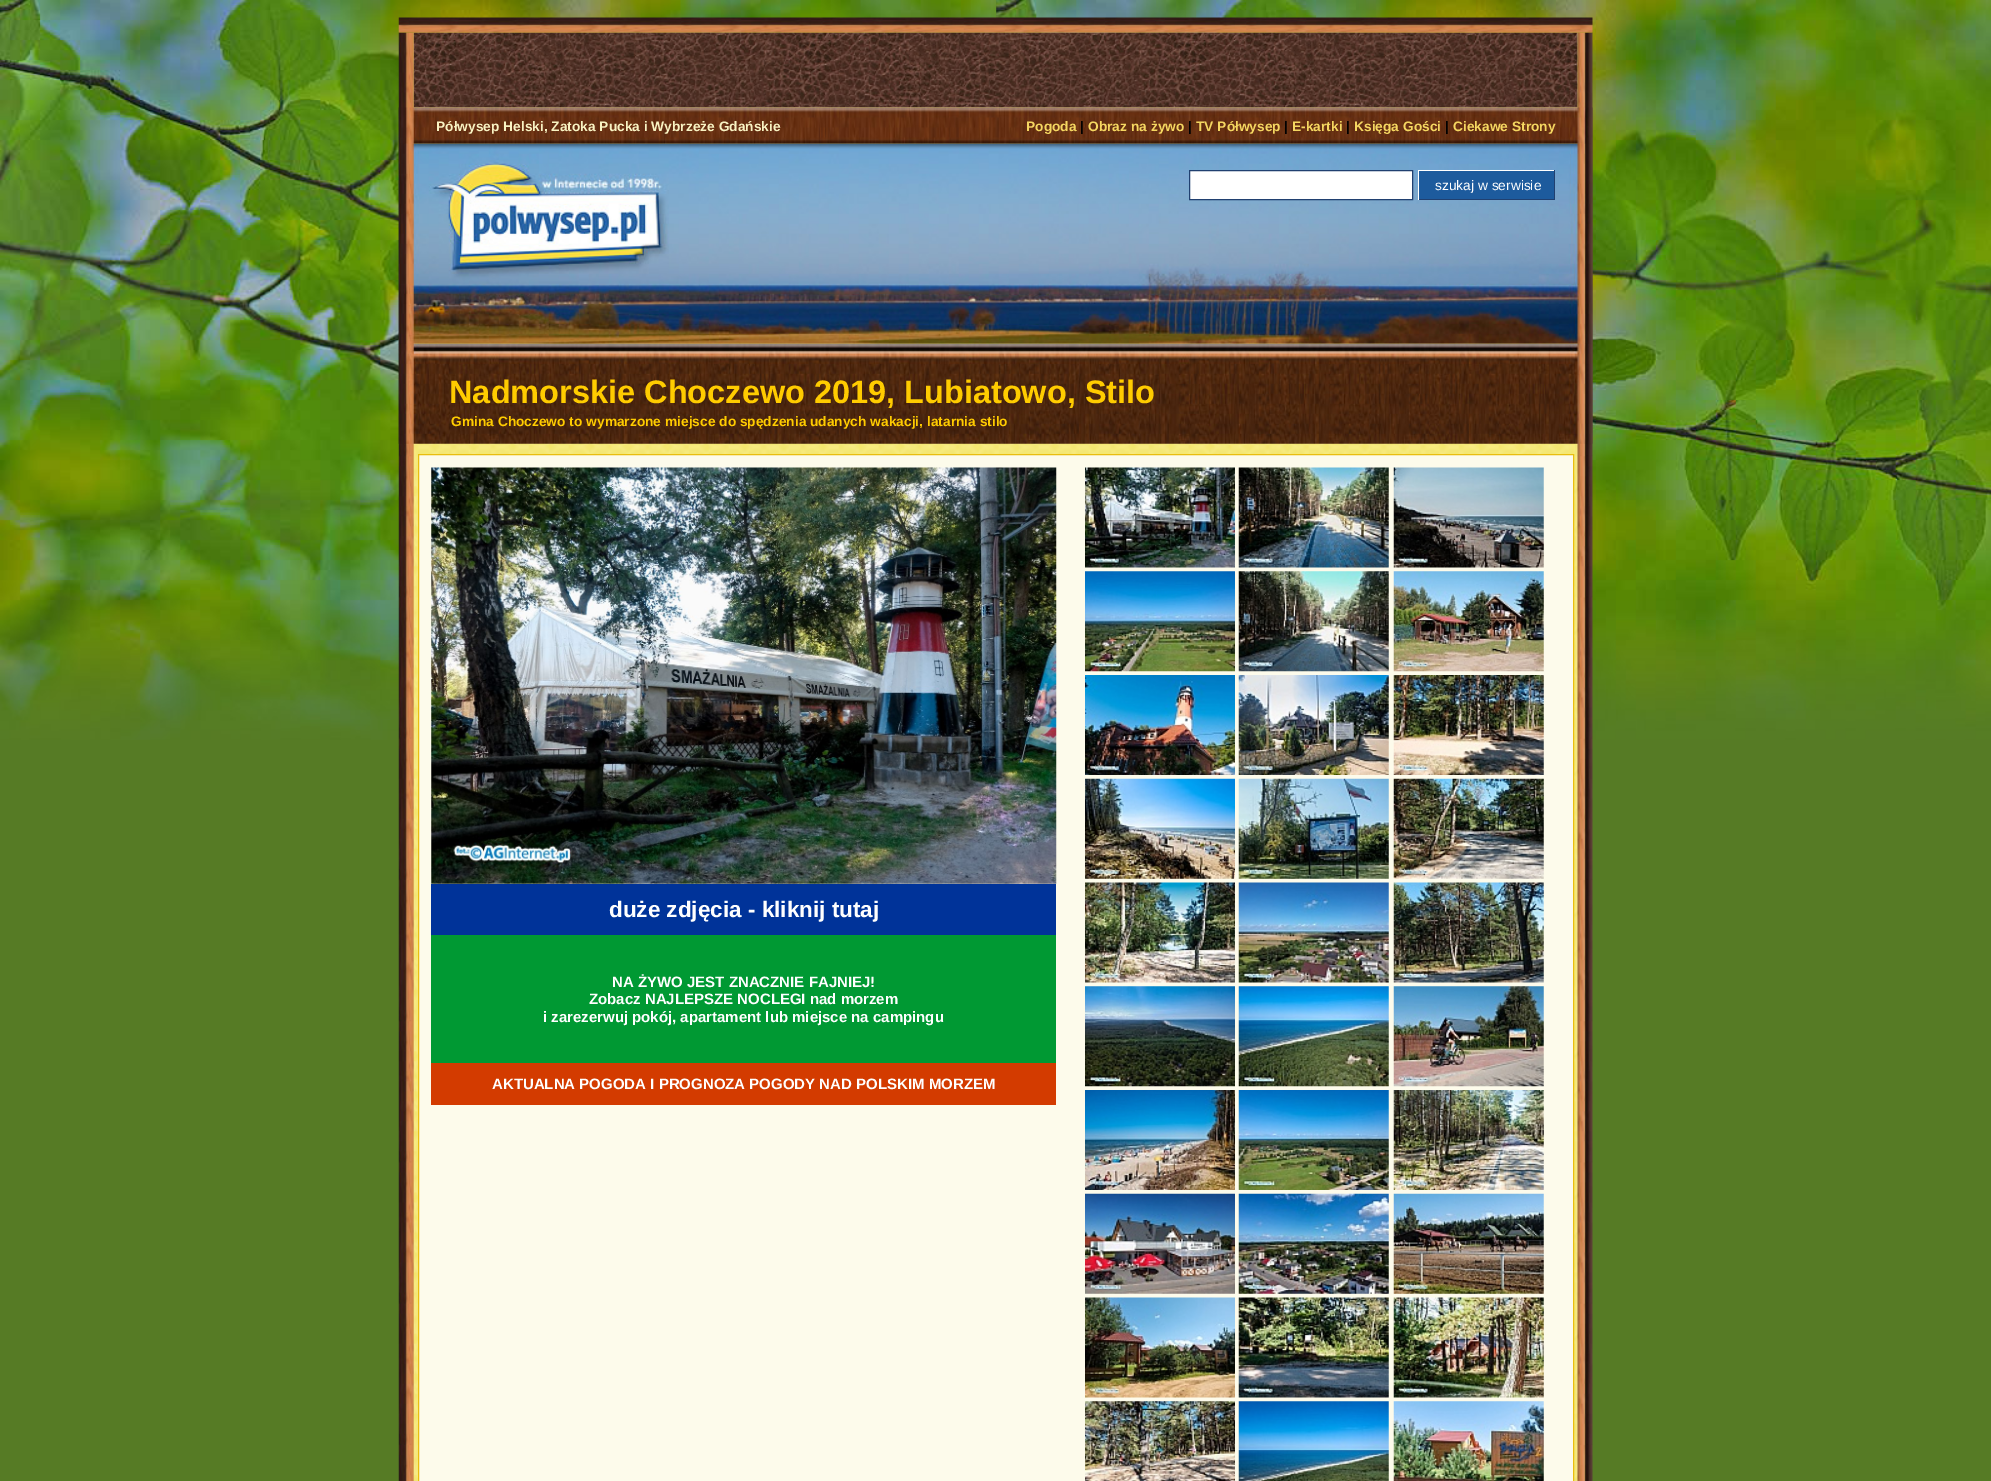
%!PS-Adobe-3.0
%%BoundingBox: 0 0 1991 1481
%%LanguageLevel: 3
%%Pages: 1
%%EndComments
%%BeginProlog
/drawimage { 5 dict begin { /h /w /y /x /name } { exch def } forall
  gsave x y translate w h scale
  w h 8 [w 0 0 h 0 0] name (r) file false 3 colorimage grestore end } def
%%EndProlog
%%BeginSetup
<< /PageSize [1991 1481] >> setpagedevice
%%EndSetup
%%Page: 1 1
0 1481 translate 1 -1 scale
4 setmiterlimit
0.337 0.482 0.145 setrgbcolor
0 0 1991 1481 rectfill
(images/1.raw) 0 0 997 740 drawimage
(images/2.raw) 996 0 995 740 drawimage
(images/3.raw) 398 32 1195 1449 drawimage
(images/5.raw) 413 32 1165 76 drawimage
(images/4.raw) 398 17 1195 16 drawimage
(images/6.raw) 398 107 1195 37 drawimage
(images/7.raw) 398 143 1195 201 drawimage
1 setgray
newpath 1189.5 170.5 moveto 1412.5 170.5 lineto 1412.5 199.5 lineto 1189.5 199.5 lineto closepath gsave fill grestore
0.125 0.251 0.439 setrgbcolor
stroke
0.114 0.357 0.616 setrgbcolor
1419 171 135 28 rectfill
1 setgray
1418 170 137 1 rectfill
0.125 0.251 0.439 setrgbcolor
1554 170 1 30 rectfill
1418 199 137 1 rectfill
1 setgray
1418 170 1 30 rectfill
(images/8.raw) 398 343 1195 101 drawimage
0.992 0.984 0.922 setrgbcolor
newpath 418.5 454.5 moveto 1573.5 454.5 lineto 1573.5 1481.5 lineto 418.5 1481.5 lineto closepath gsave fill grestore
0.914 0.745 0.059 setrgbcolor
stroke
(images/9.raw) 431 467 626 417 drawimage
0 0.2 0.6 setrgbcolor
431 884 625 51 rectfill
0 0.6 0.2 setrgbcolor
431 935 625 128 rectfill
0.827 0.231 0 setrgbcolor
431 1063 625 42 rectfill
(images/10.raw) 1085 467 150 101 drawimage
(images/11.raw) 1238 467 151 101 drawimage
(images/12.raw) 1393 467 151 101 drawimage
(images/13.raw) 1085 571 150 101 drawimage
(images/14.raw) 1238 571 151 101 drawimage
(images/15.raw) 1393 571 151 101 drawimage
(images/16.raw) 1085 675 150 100 drawimage
(images/17.raw) 1238 675 151 100 drawimage
(images/18.raw) 1393 675 151 100 drawimage
(images/19.raw) 1085 778 150 101 drawimage
(images/20.raw) 1238 778 151 101 drawimage
(images/21.raw) 1393 778 151 101 drawimage
(images/22.raw) 1085 882 150 101 drawimage
(images/23.raw) 1238 882 151 101 drawimage
(images/24.raw) 1393 882 151 101 drawimage
(images/25.raw) 1085 986 150 101 drawimage
(images/26.raw) 1238 986 151 101 drawimage
(images/27.raw) 1393 986 151 101 drawimage
(images/28.raw) 1085 1090 150 100 drawimage
(images/29.raw) 1238 1090 151 100 drawimage
(images/30.raw) 1393 1090 151 100 drawimage
(images/31.raw) 1085 1193 150 101 drawimage
(images/32.raw) 1238 1193 151 101 drawimage
(images/33.raw) 1393 1193 151 101 drawimage
(images/34.raw) 1085 1297 150 101 drawimage
(images/35.raw) 1238 1297 151 101 drawimage
(images/36.raw) 1393 1297 151 101 drawimage
(images/37.raw) 1085 1401 150 80 drawimage
(images/38.raw) 1238 1401 151 80 drawimage
(images/39.raw) 1393 1401 151 80 drawimage
/LiberationSans-Bold [13.75 0 0 -13.75 0 0] selectfont
0.976 0.953 0.765 setrgbcolor
436 131 moveto (Półwysep Helski, Zatoka Pucka i Wybrzeże Gdańskie) show
0.961 0.843 0.38 setrgbcolor
1026 131 moveto (Pogoda) show
0 setgray
1080 131 moveto (|) show
0.961 0.843 0.38 setrgbcolor
1088 131 moveto (Obraz na żywo) show
0 setgray
1188 131 moveto (|) show
0.961 0.843 0.38 setrgbcolor
1196 131 moveto (TV Półwysep) show
0 setgray
1284 131 moveto (|) show
0.961 0.843 0.38 setrgbcolor
1292 131 moveto (E-kartki) show
0 setgray
1346 131 moveto (|) show
0.961 0.843 0.38 setrgbcolor
1354 131 moveto (Księga Gości) show
0 setgray
1445 131 moveto (|) show
0.961 0.843 0.38 setrgbcolor
1453 131 moveto (Ciekawe Strony) show
/LiberationSans-Regular [13.75 0 0 -13.75 0 0] selectfont
1 setgray
1435 190 moveto (szukaj w serwisie) show
/LiberationSans-Bold [32.5 0 0 -32.5 0 0] selectfont
1 0.8 0 setrgbcolor
449 403 moveto (Nadmorskie Choczewo 2019, Lubiatowo, Stilo) show
/LiberationSans-Bold [13.75 0 0 -13.75 0 0] selectfont
451 426 moveto (Gmina Choczewo to wymarzone miejsce do spędzenia udanych wakacji, latarnia stilo) show
/LiberationSans-Bold [22.5 0 0 -22.5 0 0] selectfont
1 setgray
609 917 moveto (duże zdjęcia - kliknij tutaj) show
/LiberationSans-Bold [15 0 0 -15 0 0] selectfont
612 987 moveto (NA ŻYWO JEST ZNACZNIE FAJNIEJ!) show
589 1004 moveto (Zobacz NAJLEPSZE NOCLEGI nad morzem) show
543 1022 moveto (i zarezerwuj pokój, apartament lub miejsce na campingu) show
492 1089 moveto (AKTUALNA POGODA I PROGNOZA POGODY NAD POLSKIM MORZEM) show
showpage
%%EOF
